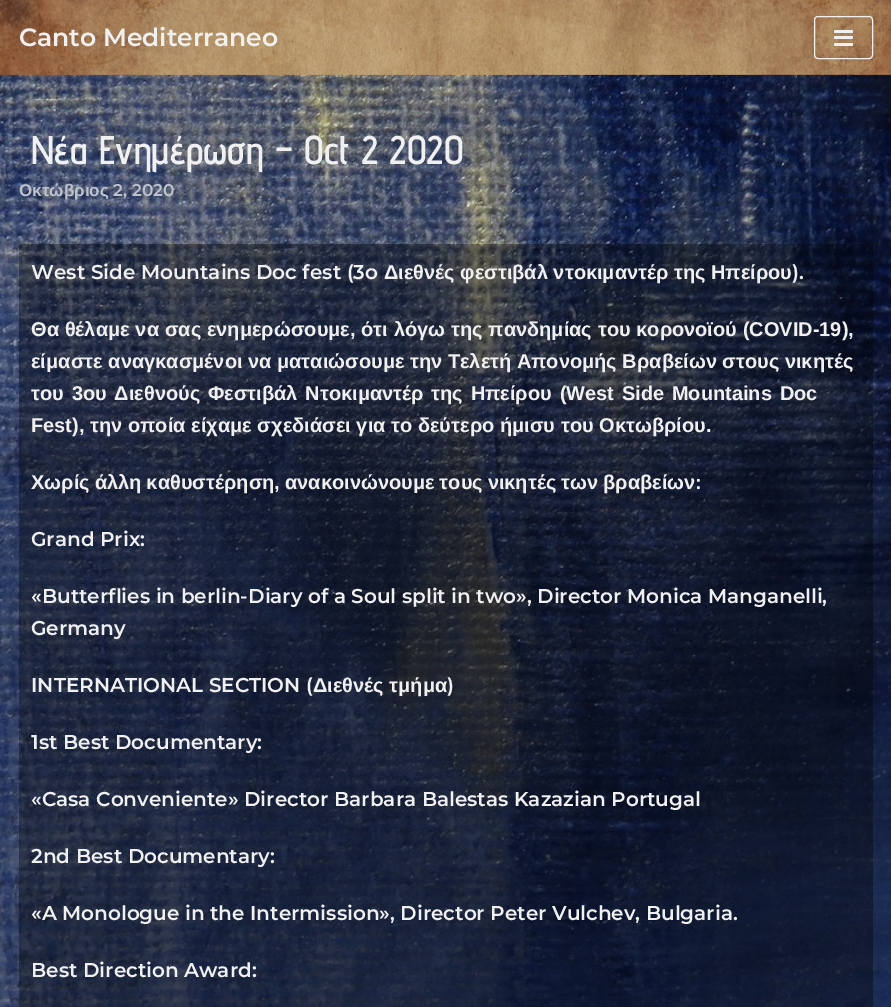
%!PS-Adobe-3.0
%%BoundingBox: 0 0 891 1007
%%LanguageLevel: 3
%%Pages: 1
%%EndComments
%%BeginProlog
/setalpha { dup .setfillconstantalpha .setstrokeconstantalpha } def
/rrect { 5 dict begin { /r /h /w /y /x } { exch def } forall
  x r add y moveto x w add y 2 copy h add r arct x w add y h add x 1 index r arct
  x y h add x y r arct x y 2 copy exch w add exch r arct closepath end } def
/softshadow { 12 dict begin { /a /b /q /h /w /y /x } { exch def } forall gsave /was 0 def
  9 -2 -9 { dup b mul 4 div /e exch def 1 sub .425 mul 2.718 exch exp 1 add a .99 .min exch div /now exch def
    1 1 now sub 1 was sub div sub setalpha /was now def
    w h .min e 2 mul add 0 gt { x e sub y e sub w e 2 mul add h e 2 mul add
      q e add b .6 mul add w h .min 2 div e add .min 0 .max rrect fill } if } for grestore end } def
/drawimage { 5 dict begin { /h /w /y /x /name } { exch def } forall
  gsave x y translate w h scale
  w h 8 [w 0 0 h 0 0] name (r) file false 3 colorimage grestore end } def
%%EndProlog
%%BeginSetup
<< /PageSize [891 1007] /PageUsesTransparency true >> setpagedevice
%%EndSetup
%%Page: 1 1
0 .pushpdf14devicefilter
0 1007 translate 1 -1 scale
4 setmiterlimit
1 setgray
0 0 891 1007 rectfill
(images/1.raw) 0 74 891 933 drawimage
0 setgray
0 -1 891 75 0 2 0.1 softshadow
(images/2.raw) 0 0 891 75 drawimage
0.941 setgray
814.5 16.5 58 42 3.5 rrect stroke
834 30 19 3 1.5 rrect fill
834 36 19 3 1.5 rrect fill
834 43 19 3 1.5 rrect fill
0.35 setalpha
0 setgray
19 244 854 763 rectfill
/Montserrat-SemiBold [25 0 0 -25 0 0] selectfont
1 setalpha
0.941 setgray
19 46 moveto (Canto Mediterraneo) show
/AdventPro-SemiBold [40 0 0 -40 0 0] selectfont
31 164 moveto (Νέα Ενημέρωση – Oct 2 2020) show
/LiberationSans-Bold [17 0 0 -17 0 0] selectfont
0.745 0.761 0.796 setrgbcolor
19 196 moveto (Οκτώβριος) show
/Montserrat-SemiBold [17 0 0 -17 0 0] selectfont
113 196 moveto (2, 2020) show
/Montserrat-SemiBold [20 0 0 -20 0 0] selectfont
0.941 setgray
31 279 moveto (West Side Mountains Doc fest \(3o) show
/LiberationSans-Bold [20 0 0 -20 0 0] selectfont
384 279 moveto (Διεθνές φεστιβάλ ντοκιμαντέρ της Ηπείρου) show
/Montserrat-SemiBold [20 0 0 -20 0 0] selectfont
792 279 moveto (\).) show
/LiberationSans-Bold [20 0 0 -20 0 0] selectfont
31 336 moveto 0.25 0 32 (Θα θέλαμε να σας ενημερώσουμε, ότι λόγω της πανδημίας του κορονοϊού \(COVID-19\),) widthshow
31 368 moveto (είμαστε αναγκασμένοι να ματαιώσουμε την Τελετή Απονομής Βραβείων στους νικητές) show
31 400 moveto 2.25 0 32 (του 3ου Διεθνούς Φεστιβάλ Ντοκιμαντέρ της Ηπείρου \(West Side Mountains Doc) widthshow
31 432 moveto 0.1 0 32 (Fest\), την οποία είχαμε σχεδιάσει για το δεύτερο ήμισυ του Οκτωβρίου.) widthshow
31 489 moveto -0.5 0 32 (Χωρίς άλλη καθυστέρηση, ανακοινώνουμε τους νικητές των βραβείων:) widthshow
/Montserrat-SemiBold [20 0 0 -20 0 0] selectfont
31 546 moveto (Grand Prix:) show
31 603 moveto («Butterflies in berlin-Diary of a Soul split in two», Director Monica Manganelli,) show
31 635 moveto (Germany) show
31 692 moveto (INTERNATIONAL SECTION \() show
/LiberationSans-Bold [20 0 0 -20 0 0] selectfont
313 692 moveto (Διεθνές τμήμα) show
/Montserrat-SemiBold [20 0 0 -20 0 0] selectfont
447 692 moveto (\)) show
31 749 moveto (1st Best Documentary:) show
31 806 moveto («Casa Conveniente» Director Barbara Balestas Kazazian Portugal) show
31 863 moveto (2nd Best Documentary:) show
31 920 moveto («A Monologue in the Intermission», Director Peter Vulchev, Bulgaria.) show
31 977 moveto (Best Direction Award:) show
.poppdf14devicefilter showpage
%%EOF
